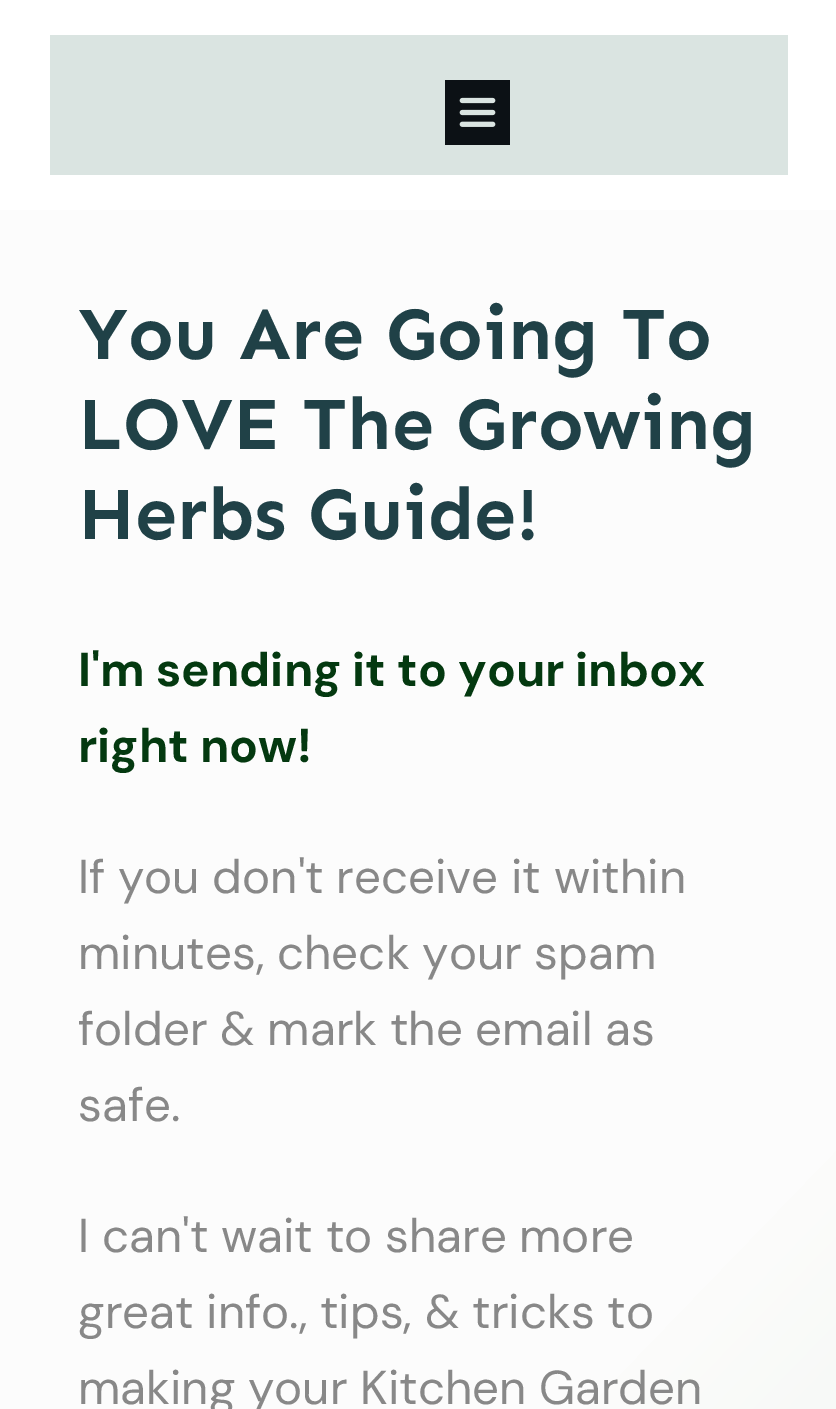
%!PS-Adobe-3.0
%%BoundingBox: 0 0 836 1409
%%LanguageLevel: 3
%%Pages: 1
%%EndComments
%%BeginProlog
/drawimage { 5 dict begin { /h /w /y /x /name } { exch def } forall
  gsave x y translate w h scale
  w h 8 [w 0 0 h 0 0] name (r) file false 3 colorimage grestore end } def
%%EndProlog
%%BeginSetup
<< /PageSize [836 1409] >> setpagedevice
%%EndSetup
%%Page: 1 1
0 1409 translate 1 -1 scale
4 setmiterlimit
1 setgray
0 0 836 1409 rectfill
0.855 0.894 0.882 setrgbcolor
50 35 738 140 rectfill
(images/1.raw) 445 80 65 65 drawimage
gsave newpath 0 210 moveto 836 210 lineto 836 1409 lineto 0 1409 lineto closepath clip newpath
<< /ShadingType 2 /ColorSpace /DeviceRGB /Coords [-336 558 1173 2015] /Extend [true true] /Function << /FunctionType 3 /Domain [0 1] /Functions [<< /FunctionType 2 /Domain [0 1] /C0 [0.988 0.988 0.988] /C1 [0.988 0.988 0.988] /N 1 >> << /FunctionType 2 /Domain [0 1] /C0 [0.988 0.988 0.988] /C1 [0.906 0.933 0.898] /N 1 >>] /Bounds [0.59] /Encode [0 1 0 1] >> >> shfill grestore
/Sen-Bold [75 0 0 -75 0 0] selectfont
0.125 0.255 0.278 setrgbcolor
78 359 moveto (You Are Going To) show
78 449 moveto (LOVE The Growing) show
78 539 moveto (Herbs Guide!) show
/DMSans-Bold [47.5 0 0 -47.5 0 0] selectfont
0.016 0.224 0.063 setrgbcolor
78 686 moveto (I'm sending it to your inbox) show
78 762 moveto (right now!) show
/DMSans-Regular [47.5 0 0 -47.5 0 0] selectfont
0.533 setgray
78 893 moveto (If you don't receive it within) show
78 969 moveto (minutes, check your spam) show
78 1045 moveto (folder & mark the email as) show
78 1121 moveto (safe.) show
78 1252 moveto (I can't wait to share more) show
78 1328 moveto (great info., tips, & tricks to) show
78 1404 moveto (making your Kitchen Garden) show
showpage
%%EOF
